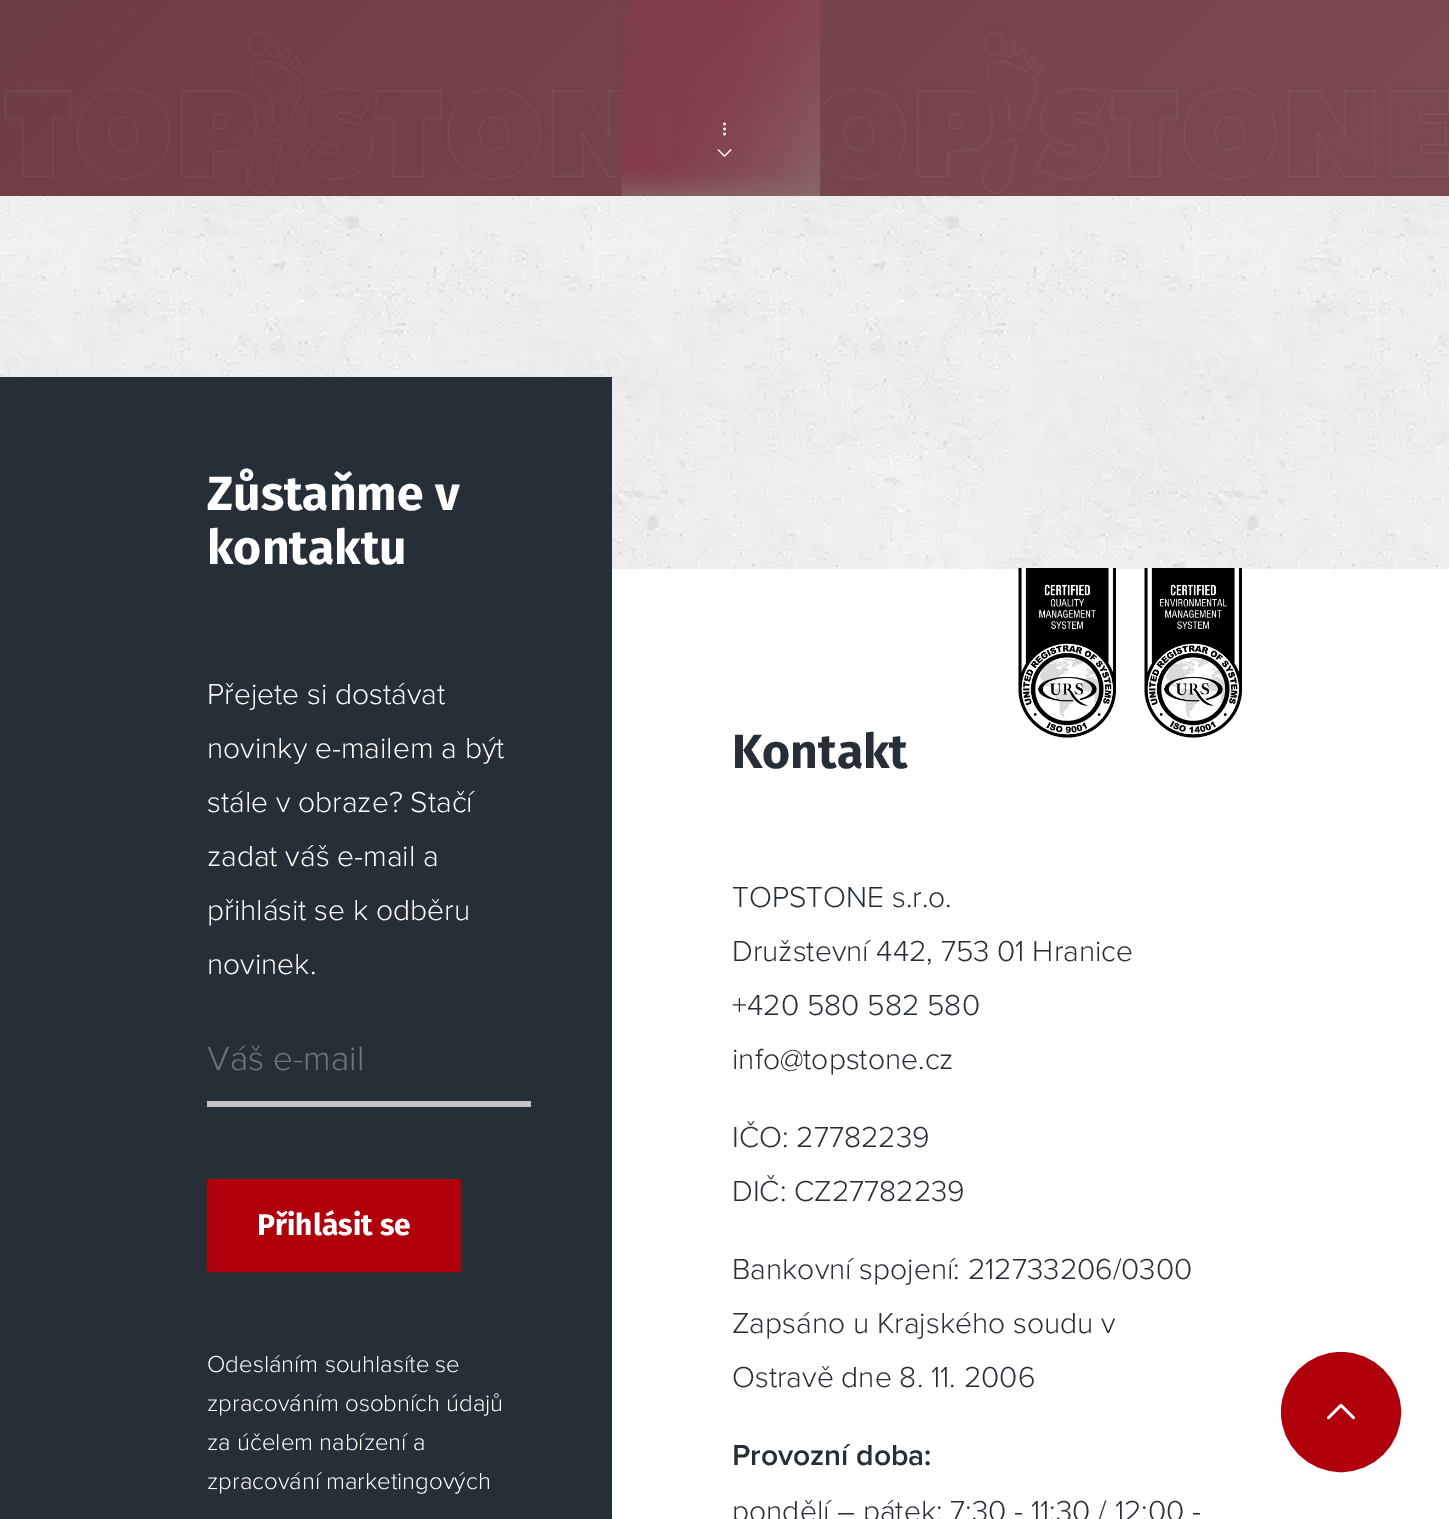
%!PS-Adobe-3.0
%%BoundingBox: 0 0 1449 1519
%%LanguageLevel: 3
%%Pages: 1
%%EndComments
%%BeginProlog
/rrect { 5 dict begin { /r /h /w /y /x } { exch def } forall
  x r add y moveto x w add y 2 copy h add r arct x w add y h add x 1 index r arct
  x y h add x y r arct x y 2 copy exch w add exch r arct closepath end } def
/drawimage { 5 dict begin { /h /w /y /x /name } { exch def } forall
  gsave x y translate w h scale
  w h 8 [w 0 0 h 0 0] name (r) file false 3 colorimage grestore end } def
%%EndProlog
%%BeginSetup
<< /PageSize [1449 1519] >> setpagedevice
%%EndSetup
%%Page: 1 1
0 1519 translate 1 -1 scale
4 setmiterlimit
1 setgray
0 0 1449 1519 rectfill
(images/1.raw) 0 196 1449 373 drawimage
(images/2.raw) 0 0 1449 196 drawimage
(images/3.raw) 723 122 3 14 drawimage
(images/4.raw) 717 149 15 8 drawimage
0.149 0.184 0.22 setrgbcolor
0 377 612 1142 rectfill
0.776 setgray
207 1101 324 6 rectfill
0.686 0 0.043 setrgbcolor
208 1180 252 91 0.5 rrect gsave fill grestore
2 setlinewidth
stroke
(images/5.raw) 1018 568 98 170 drawimage
(images/6.raw) 1144 568 98 170 drawimage
newpath 1341 1412 59 0 360 arc closepath gsave fill grestore
stroke
(images/7.raw) 1327 1403 28 17 drawimage
/FiraSans-Bold [48 0 0 -48 0 0] selectfont
1 setgray
207 510 moveto (Zůstaňme v) show
207 564 moveto (kontaktu) show
/ProximaNova-Light [30 0 0 -30 0 0] selectfont
207 704 moveto (Přejete si dostávat) show
207 758 moveto (novinky e-mailem a být) show
207 812 moveto (stále v obraze? Stačí) show
207 866 moveto (zadat váš e-mail a) show
207 920 moveto (přihlásit se k odběru) show
207 974 moveto (novinek.) show
/ProximaNova-Light [35 0 0 -35 0 0] selectfont
0.424 0.459 0.49 setrgbcolor
207 1070 moveto (Váš e-mail) show
/FiraSans-Bold [30 0 0 -30 0 0] selectfont
1 setgray
257 1235 moveto (Přihlásit se) show
/ProximaNova-Light [24 0 0 -24 0 0] selectfont
207 1372 moveto (Odesláním souhlasíte se) show
207 1411 moveto (zpracováním osobních údajů) show
207 1450 moveto (za účelem nabízení a) show
207 1489 moveto (zpracování marketingových) show
/FiraSans-Bold [48 0 0 -48 0 0] selectfont
0.149 0.184 0.22 setrgbcolor
732 768 moveto (Kontakt) show
/ProximaNova-Light [30 0 0 -30 0 0] selectfont
732 907 moveto (TOPSTONE s.r.o.) show
732 961 moveto (Družstevní 442, 753 01 Hranice) show
732 1015 moveto (+420 580 582 580) show
732 1069 moveto (info@topstone.cz) show
732 1147 moveto (IČO: 27782239) show
732 1201 moveto (DIČ: CZ27782239) show
732 1279 moveto (Bankovní spojení: 212733206/0300) show
732 1333 moveto (Zapsáno u Krajského soudu v) show
732 1387 moveto (Ostravě dne 8. 11. 2006) show
/ProximaNova-SemiBold [30 0 0 -30 0 0] selectfont
732 1465 moveto (Provozní doba:) show
/ProximaNova-Light [30 0 0 -30 0 0] selectfont
732 1521 moveto (pondělí – pátek: 7:30 - 11:30 / 12:00 -) show
showpage
%%EOF
